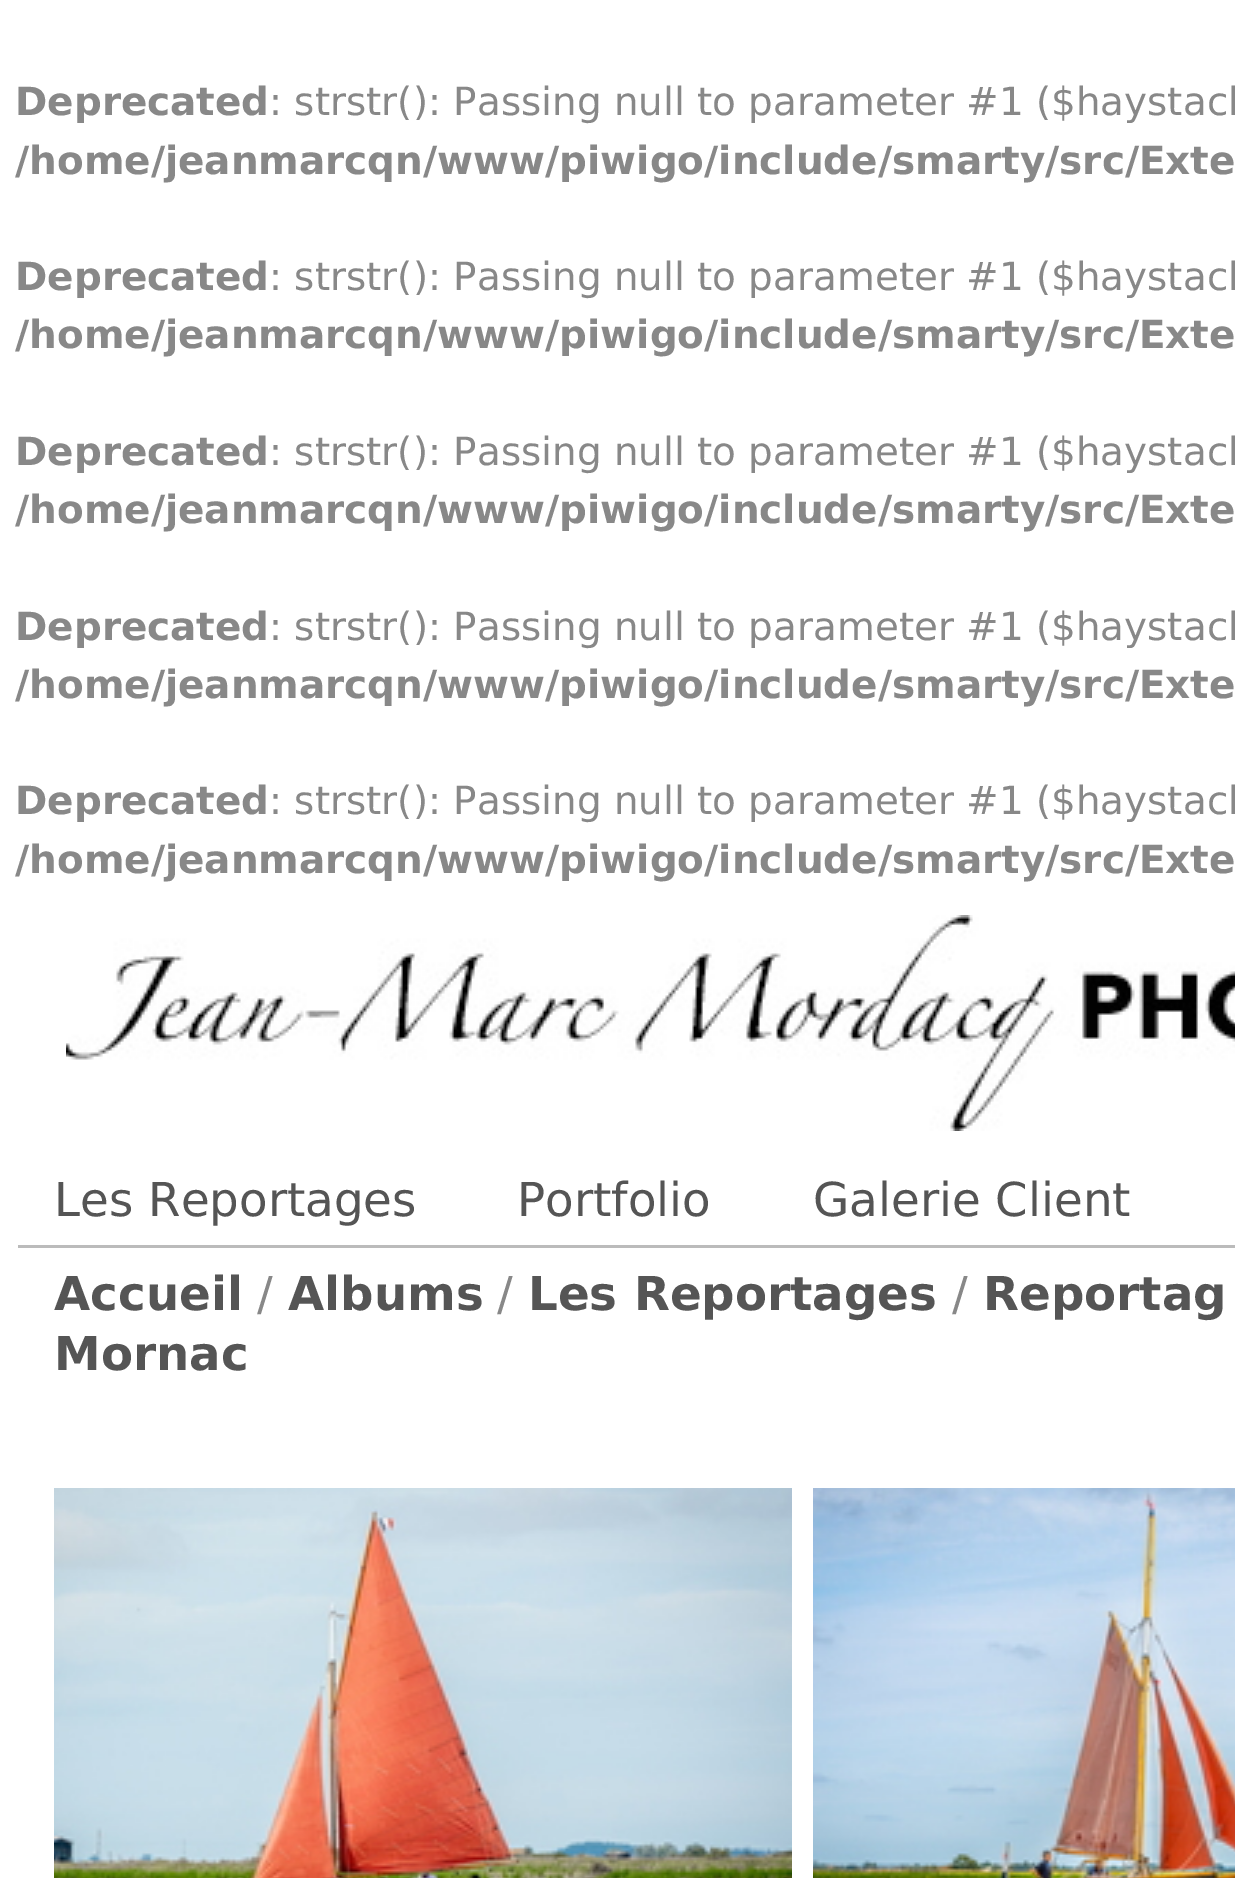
%!PS-Adobe-3.0
%%BoundingBox: 0 0 1235 1878
%%LanguageLevel: 3
%%Pages: 1
%%EndComments
%%BeginProlog
/drawimage { 5 dict begin { /h /w /y /x /name } { exch def } forall
  gsave x y translate w h scale
  w h 8 [w 0 0 h 0 0] name (r) file false 3 colorimage grestore end } def
%%EndProlog
%%BeginSetup
<< /PageSize [1235 1878] >> setpagedevice
%%EndSetup
%%Page: 1 1
0 1878 translate 1 -1 scale
4 setmiterlimit
1 setgray
0 0 1235 1878 rectfill
(images/1.raw) 66 915 1169 216 drawimage
0.733 setgray
18 1245 1217 3 rectfill
(images/2.raw) 54 1488 738 390 drawimage
(images/3.raw) 813 1488 422 390 drawimage
/DejaVuSans-Bold [38.9 0 0 -38.9 0 0] selectfont
0.533 setgray
15 115 moveto (Deprecated) show
/DejaVuSans-Regular [38.9 0 0 -38.9 0 0] selectfont
269 115 moveto (: strstr\(\): Passing null to parameter #1 \($haystack) show
/DejaVuSans-Bold [38.9 0 0 -38.9 0 0] selectfont
15 174 moveto (/home/jeanmarcqn/www/piwigo/include/smarty/src/Exte) show
15 290 moveto (Deprecated) show
/DejaVuSans-Regular [38.9 0 0 -38.9 0 0] selectfont
269 290 moveto (: strstr\(\): Passing null to parameter #1 \($haystack) show
/DejaVuSans-Bold [38.9 0 0 -38.9 0 0] selectfont
15 348 moveto (/home/jeanmarcqn/www/piwigo/include/smarty/src/Exte) show
15 465 moveto (Deprecated) show
/DejaVuSans-Regular [38.9 0 0 -38.9 0 0] selectfont
269 465 moveto (: strstr\(\): Passing null to parameter #1 \($haystack) show
/DejaVuSans-Bold [38.9 0 0 -38.9 0 0] selectfont
15 523 moveto (/home/jeanmarcqn/www/piwigo/include/smarty/src/Exte) show
15 640 moveto (Deprecated) show
/DejaVuSans-Regular [38.9 0 0 -38.9 0 0] selectfont
269 640 moveto (: strstr\(\): Passing null to parameter #1 \($haystack) show
/DejaVuSans-Bold [38.9 0 0 -38.9 0 0] selectfont
15 698 moveto (/home/jeanmarcqn/www/piwigo/include/smarty/src/Exte) show
15 814 moveto (Deprecated) show
/DejaVuSans-Regular [38.9 0 0 -38.9 0 0] selectfont
269 814 moveto (: strstr\(\): Passing null to parameter #1 \($haystack) show
/DejaVuSans-Bold [38.9 0 0 -38.9 0 0] selectfont
15 873 moveto (/home/jeanmarcqn/www/piwigo/include/smarty/src/Exte) show
/DejaVuSans-Regular [46.75 0 0 -46.75 0 0] selectfont
0.333 setgray
54 1216 moveto (Les Reportages) show
517 1216 moveto (Portfolio) show
813 1216 moveto (Galerie Client) show
/DejaVuSans-Bold [46.75 0 0 -46.75 0 0] selectfont
54 1310 moveto (Accueil) show
/DejaVuSans-Regular [46.75 0 0 -46.75 0 0] selectfont
0.533 setgray
257 1310 moveto (/) show
/DejaVuSans-Bold [46.75 0 0 -46.75 0 0] selectfont
0.333 setgray
288 1310 moveto (Albums) show
/DejaVuSans-Regular [46.75 0 0 -46.75 0 0] selectfont
0.533 setgray
497 1310 moveto (/) show
/DejaVuSans-Bold [46.75 0 0 -46.75 0 0] selectfont
0.333 setgray
528 1310 moveto (Les Reportages) show
/DejaVuSans-Regular [46.75 0 0 -46.75 0 0] selectfont
0.533 setgray
952 1310 moveto (/) show
/DejaVuSans-Bold [46.75 0 0 -46.75 0 0] selectfont
0.333 setgray
983 1310 moveto (Reportag) show
54 1370 moveto (Mornac) show
showpage
%%EOF
